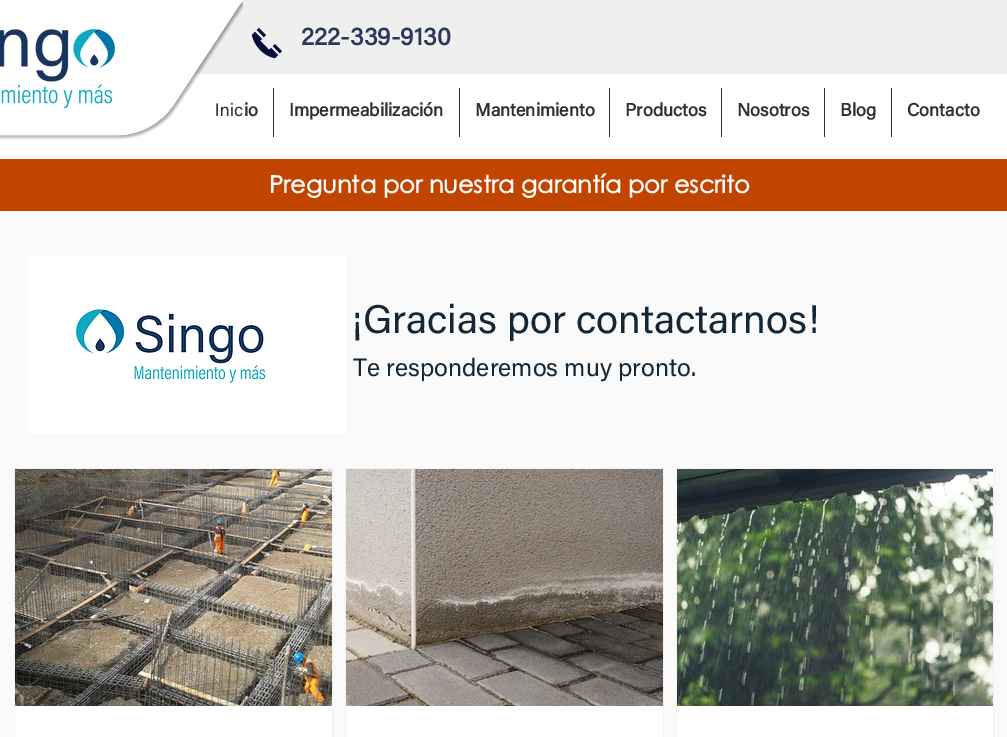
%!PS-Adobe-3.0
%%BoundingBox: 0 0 1007 737
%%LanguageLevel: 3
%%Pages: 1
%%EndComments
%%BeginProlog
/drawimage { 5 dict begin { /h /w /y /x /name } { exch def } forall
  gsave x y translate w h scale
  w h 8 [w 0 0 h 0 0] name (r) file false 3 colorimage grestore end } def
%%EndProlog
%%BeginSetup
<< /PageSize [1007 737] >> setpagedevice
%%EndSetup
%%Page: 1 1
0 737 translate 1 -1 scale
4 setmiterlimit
1 setgray
0 0 1007 737 rectfill
0.937 setgray
0 0 1007 74 rectfill
(images/3.raw) 251 27 31 32 drawimage
0.188 setgray
273 88 1 49 rectfill
459 88 1 49 rectfill
609 88 1 49 rectfill
721 88 1 49 rectfill
824 88 1 49 rectfill
891 88 1 49 rectfill
0.757 0.267 0 setrgbcolor
0 159 1007 52 rectfill
0.98 setgray
0 211 1007 526 rectfill
(images/4.raw) 28 256 317 178 drawimage
0.949 setgray
14.5 468.5 318 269 rectstroke
(images/5.raw) 15 469 317 237 drawimage
1 setgray
15 706 317 31 rectfill
0.949 setgray
345.5 468.5 318 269 rectstroke
(images/6.raw) 346 469 317 237 drawimage
1 setgray
346 706 317 31 rectfill
0.949 setgray
676.5 468.5 317 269 rectstroke
(images/7.raw) 677 469 316 237 drawimage
1 setgray
677 706 316 31 rectfill
/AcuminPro-Bold [25 0 0 -25 0 0] selectfont
0.165 0.22 0.365 setrgbcolor
301 45 moveto (222-339-9130) show
/AcuminPro-Bold [18 0 0 -18 0 0] selectfont
0.188 setgray
215 116 moveto (Inicio) show
(images/1.raw) 0 0 243 140 drawimage
(images/2.raw) 0 29 116 80 drawimage
289 116 moveto (Impermeabilización) show
475 116 moveto (Mantenimiento) show
625 116 moveto (Productos) show
737 116 moveto (Nosotros) show
840 116 moveto (Blog) show
907 116 moveto (Contacto) show
/CenturyGothic-Bold [24 0 0 -24 0 0] selectfont
1 setgray
269 193 moveto (Pregunta por nuestra garantía por escrito) show
/AcuminPro-Regular [40 0 0 -40 0 0] selectfont
0.075 0.153 0.216 setrgbcolor
353 333 moveto (¡Gracias por contactarnos!) show
/AcuminPro-Regular [25 0 0 -25 0 0] selectfont
353 376 moveto (Te responderemos muy pronto.) show
showpage
%%EOF
